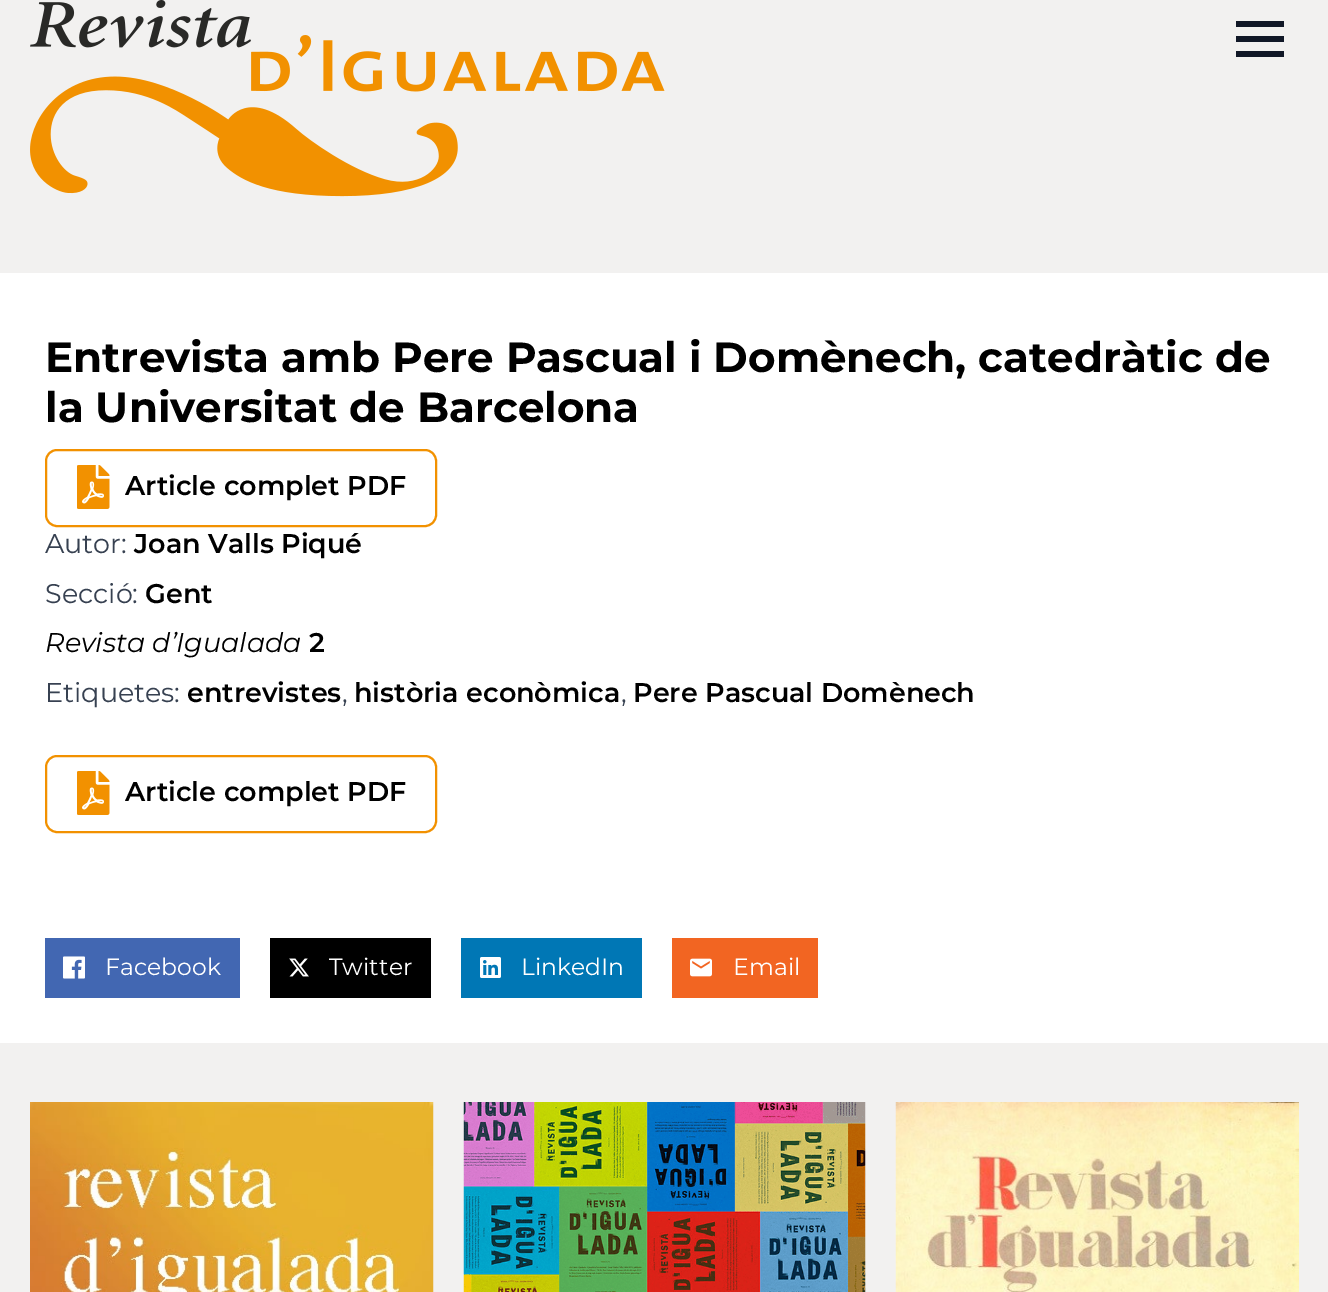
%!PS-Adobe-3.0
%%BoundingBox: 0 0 1328 1292
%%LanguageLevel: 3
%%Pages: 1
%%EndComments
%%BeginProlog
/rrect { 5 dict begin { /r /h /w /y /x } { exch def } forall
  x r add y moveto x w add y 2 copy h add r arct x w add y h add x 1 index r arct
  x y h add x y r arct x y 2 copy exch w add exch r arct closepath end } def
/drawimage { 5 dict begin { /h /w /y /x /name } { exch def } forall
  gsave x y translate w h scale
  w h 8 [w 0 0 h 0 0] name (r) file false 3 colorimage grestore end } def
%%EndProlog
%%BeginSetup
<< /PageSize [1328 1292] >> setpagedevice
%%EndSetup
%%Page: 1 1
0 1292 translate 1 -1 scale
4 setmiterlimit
0.949 0.945 0.941 setrgbcolor
0 0 1328 1292 rectfill
(images/1.raw) 30 0 635 197 drawimage
0.067 0.094 0.153 setrgbcolor
1236 36 48 6 rectfill
1236 21 48 6 rectfill
1236 51 48 6 rectfill
1 setgray
0 273 1328 770 rectfill
0.949 0.569 0 setrgbcolor
2 setlinewidth
46 450 390 76 11 rrect stroke
(images/2.raw) 77 465 33 44 drawimage
46 756 390 76 11 rrect stroke
(images/2.raw) 77 771 33 44 drawimage
0.259 0.404 0.698 setrgbcolor
45 938 195 60 rectfill
(images/3.raw) 63 956 22 23 drawimage
0 setgray
270 938 161 60 rectfill
(images/4.raw) 289 958 20 19 drawimage
0 0.467 0.71 setrgbcolor
461 938 181 60 rectfill
(images/5.raw) 480 957 21 21 drawimage
0.949 0.396 0.133 setrgbcolor
672 938 146 60 rectfill
(images/6.raw) 690 958 22 19 drawimage
(images/7.raw) 30 1102 404 190 drawimage
(images/8.raw) 463 1102 403 190 drawimage
(images/9.raw) 895 1102 404 190 drawimage
/Montserrat-Bold [42 0 0 -42 0 0] selectfont
0 setgray
45 372 moveto (Entrevista amb Pere Pascual i Domènech, catedràtic de) show
45 422 moveto (la Universitat de Barcelona) show
/Montserrat-SemiBold [27 0 0 -27 0 0] selectfont
125 495 moveto (Article complet PDF) show
/Montserrat-Regular [27 0 0 -27 0 0] selectfont
0.216 0.255 0.318 setrgbcolor
45 553 moveto (Autor:) show
/Montserrat-SemiBold [27 0 0 -27 0 0] selectfont
0 setgray
134 553 moveto (Joan Valls Piqué) show
/Montserrat-Regular [27 0 0 -27 0 0] selectfont
0.216 0.255 0.318 setrgbcolor
45 603 moveto (Secció:) show
/Montserrat-SemiBold [27 0 0 -27 0 0] selectfont
0 setgray
145 603 moveto (Gent) show
/Montserrat-Italic [27 0 0 -27 0 0] selectfont
45 652 moveto (Revista d’Igualada) show
/Montserrat-SemiBold [27 0 0 -27 0 0] selectfont
309 652 moveto (2) show
/Montserrat-Regular [27 0 0 -27 0 0] selectfont
0.216 0.255 0.318 setrgbcolor
45 702 moveto (Etiquetes:) show
/Montserrat-SemiBold [27 0 0 -27 0 0] selectfont
0 setgray
187 702 moveto (entrevistes) show
/Montserrat-Regular [27 0 0 -27 0 0] selectfont
0.216 0.255 0.318 setrgbcolor
342 702 moveto (,) show
/Montserrat-SemiBold [27 0 0 -27 0 0] selectfont
0 setgray
354 702 moveto (història econòmica) show
/Montserrat-Regular [27 0 0 -27 0 0] selectfont
0.216 0.255 0.318 setrgbcolor
621 702 moveto (,) show
/Montserrat-SemiBold [27 0 0 -27 0 0] selectfont
0 setgray
633 702 moveto (Pere Pascual Domènech) show
125 801 moveto (Article complet PDF) show
/Montserrat-Regular [23.5 0 0 -23.5 0 0] selectfont
1 setgray
105 975 moveto (Facebook) show
329 975 moveto (Twitter) show
521 975 moveto (LinkedIn) show
733 975 moveto (Email) show
showpage
%%EOF
